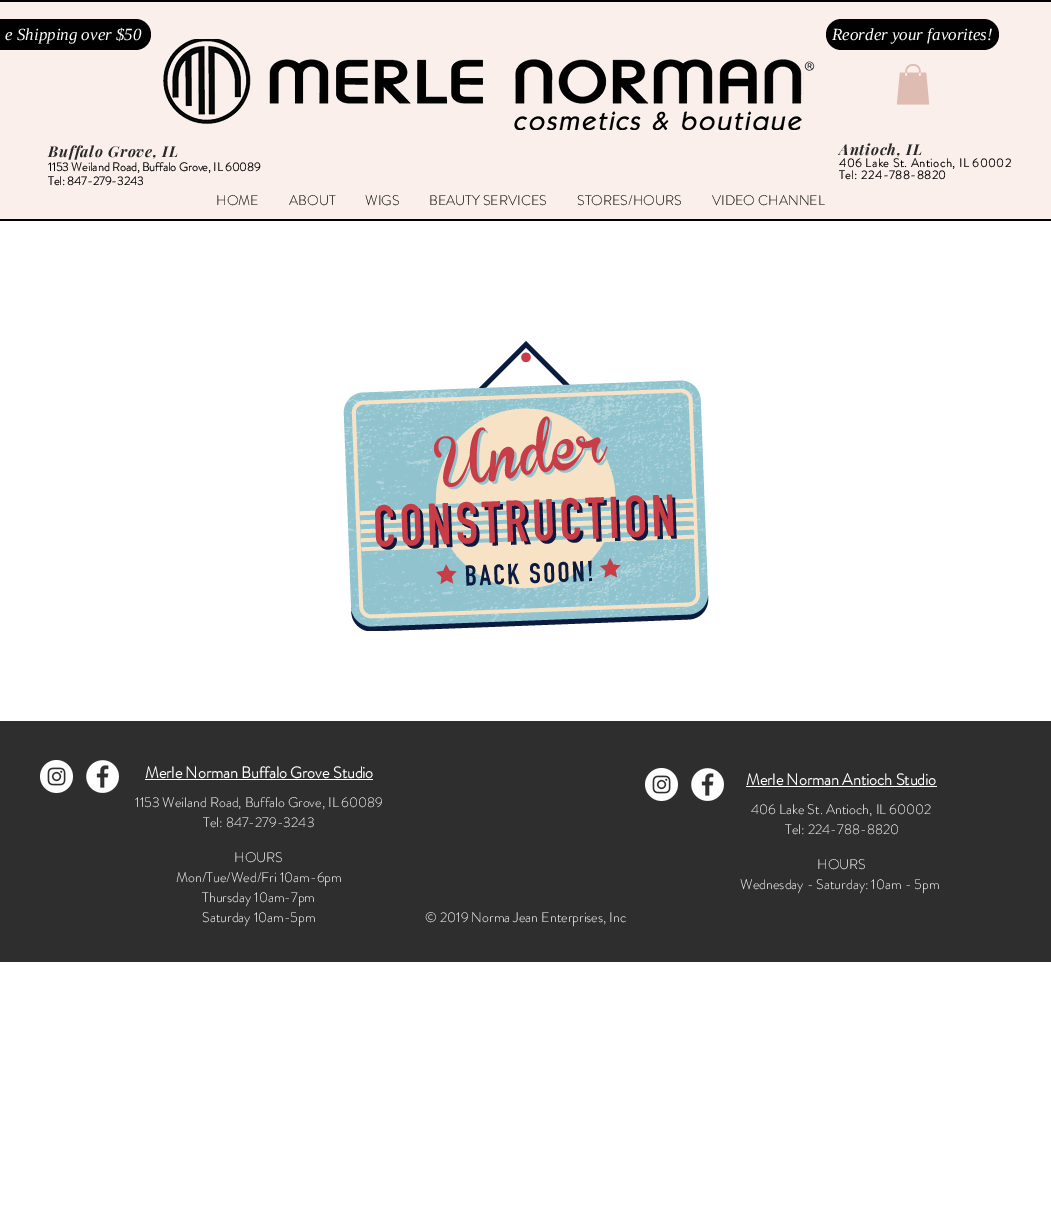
%!PS-Adobe-3.0
%%BoundingBox: 0 0 1051 1221
%%LanguageLevel: 3
%%Pages: 1
%%EndComments
%%BeginProlog
/rrect { 5 dict begin { /r /h /w /y /x } { exch def } forall
  x r add y moveto x w add y 2 copy h add r arct x w add y h add x 1 index r arct
  x y h add x y r arct x y 2 copy exch w add exch r arct closepath end } def
/drawimage { 5 dict begin { /h /w /y /x /name } { exch def } forall
  gsave x y translate w h scale
  w h 8 [w 0 0 h 0 0] name (r) file false 3 colorimage grestore end } def
%%EndProlog
%%BeginSetup
<< /PageSize [1051 1221] >> setpagedevice
%%EndSetup
%%Page: 1 1
0 1221 translate 1 -1 scale
4 setmiterlimit
1 setgray
0 0 1051 1221 rectfill
0 setgray
0 0 1051 2 rectfill
0 219 1051 2 rectfill
0.98 0.937 0.922 setrgbcolor
0 2 1051 217 rectfill
0 setgray
-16 19 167 31 15.5 rrect fill
826 19 173 31 15.5 rrect fill
(images/1.raw) 162 39 653 91 drawimage
(images/2.raw) 896 64 34 41 drawimage
(images/3.raw) 343 341 366 290 drawimage
0.184 0.18 0.18 setrgbcolor
0 721 1051 241 rectfill
(images/4.raw) 40 760 33 33 drawimage
(images/5.raw) 86 760 33 33 drawimage
1 setgray
145 779 228 1 rectfill
(images/4.raw) 645 768 33 33 drawimage
(images/5.raw) 691 768 33 33 drawimage
746 786 191 1 rectfill
/LiberationSerif-Italic [17 0 0 -17 0 0] selectfont
5 40 moveto (e Shipping over $50) show
832 40 moveto (Reorder your favorites!) show
/PlayfairDisplay-BoldItalic [15 0 0 -15 0 0] selectfont
0.161 setgray
48 157 moveto 0.75 0 (Buffalo Grove, IL) ashow
/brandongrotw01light-Bold [12 0 0 -12 0 0] selectfont
0 setgray
48 171 moveto (1153 Weiland Road, Buffalo Grove, IL 60089) show
48 185 moveto (Tel: 847-279-3243) show
/PlayfairDisplay-BoldItalic [15 0 0 -15 0 0] selectfont
0.161 setgray
839 155 moveto 0.75 0 (Antioch, IL) ashow
/brandongrotw01light-Bold [12 0 0 -12 0 0] selectfont
0 setgray
839 167 moveto 0.6 0 (406 Lake St. Antioch, IL 60002) ashow
839 179 moveto 0.6 0 (Tel: 224-788-8820) ashow
/brandongrotw01light-Light [14 0 0 -14 0 0] selectfont
216 205 moveto (HOME) show
289 205 moveto (ABOUT) show
365 205 moveto (WIGS) show
429 205 moveto (BEAUTY SERVICES) show
577 205 moveto (STORES/HOURS) show
712 205 moveto (VIDEO CHANNEL) show
/brandongrotw01light-Bold [16 0 0 -16 0 0] selectfont
1 setgray
145 778 moveto (Merle Norman Buffalo Grove Studio) show
/brandongrotw01light-Light [14 0 0 -14 0 0] selectfont
135 807 moveto (1153 Weiland Road, Buffalo Grove, IL 60089) show
203 827 moveto (Tel: 847-279-3243) show
234 862 moveto (HOURS) show
176 882 moveto (Mon/Tue/Wed/Fri 10am-6pm) show
202 902 moveto (Thursday 10am-7pm) show
202 922 moveto (Saturday 10am-5pm) show
/brandongrotw01light-Bold [16 0 0 -16 0 0] selectfont
746 785 moveto (Merle Norman Antioch Studio) show
/brandongrotw01light-Light [14 0 0 -14 0 0] selectfont
751 814 moveto (406 Lake St. Antioch, IL 60002) show
785 834 moveto (Tel: 224-788-8820) show
817 869 moveto (HOURS) show
740 889 moveto (Wednesday - Saturday: 10am - 5pm) show
425 922 moveto (© 2019 Norma Jean Enterprises, Inc) show
showpage
%%EOF
